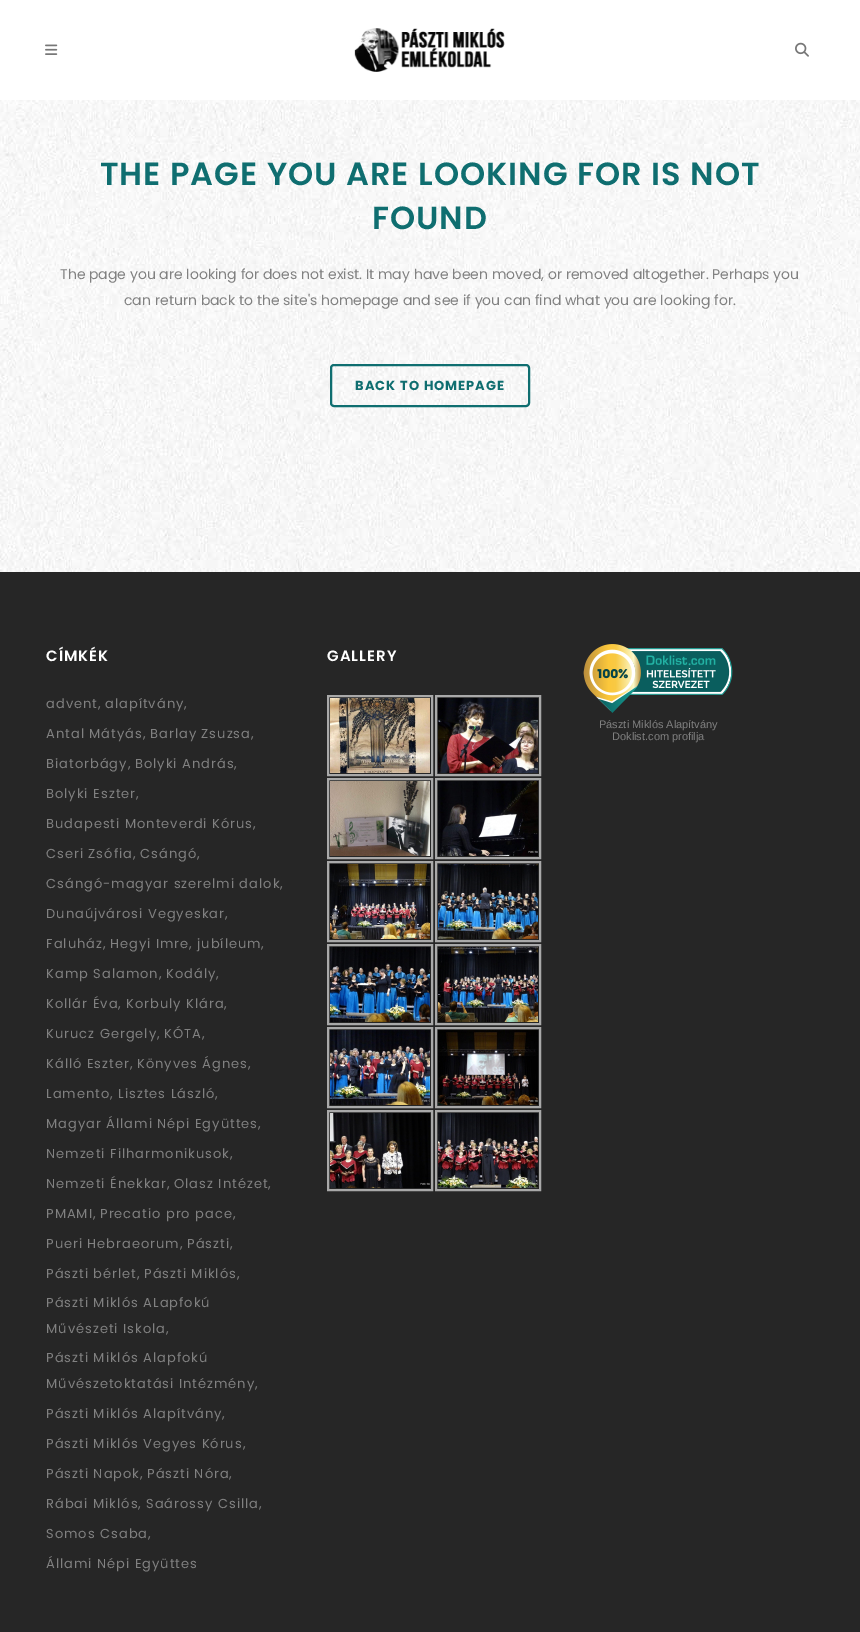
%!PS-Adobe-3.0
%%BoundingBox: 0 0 860 1632
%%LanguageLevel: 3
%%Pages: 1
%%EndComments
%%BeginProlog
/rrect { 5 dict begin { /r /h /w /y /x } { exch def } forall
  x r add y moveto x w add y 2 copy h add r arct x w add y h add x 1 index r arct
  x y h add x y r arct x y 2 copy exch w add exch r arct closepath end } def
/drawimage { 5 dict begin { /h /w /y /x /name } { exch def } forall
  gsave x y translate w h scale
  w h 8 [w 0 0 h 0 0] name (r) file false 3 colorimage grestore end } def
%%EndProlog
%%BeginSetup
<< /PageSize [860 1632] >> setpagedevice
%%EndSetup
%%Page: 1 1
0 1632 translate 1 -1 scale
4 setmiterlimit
1 setgray
0 0 860 1632 rectfill
(images/1.raw) 0 100 860 472 drawimage
(images/2.raw) 45 44 13 11 drawimage
(images/3.raw) 354 28 151 44 drawimage
(images/4.raw) 795 42 14 15 drawimage
0.059 0.431 0.439 setrgbcolor
2 setlinewidth
331 365 198 41 3 rrect stroke
0.149 setgray
0 572 860 1060 rectfill
0.663 setgray
328 696 104 79 rectstroke
(images/5.raw) 330 698 100 75 drawimage
436 696 104 79 rectstroke
(images/6.raw) 438 698 100 75 drawimage
328 779 104 79 rectstroke
(images/7.raw) 330 781 100 75 drawimage
436 779 104 79 rectstroke
(images/8.raw) 438 781 100 75 drawimage
328 862 104 79 rectstroke
(images/9.raw) 330 864 100 75 drawimage
436 862 104 79 rectstroke
(images/10.raw) 438 864 100 75 drawimage
328 945 104 79 rectstroke
(images/11.raw) 330 947 100 75 drawimage
436 945 104 79 rectstroke
(images/12.raw) 438 947 100 75 drawimage
328 1028 104 79 rectstroke
(images/13.raw) 330 1030 100 75 drawimage
436 1028 104 79 rectstroke
(images/14.raw) 438 1030 100 75 drawimage
328 1111 104 79 rectstroke
(images/15.raw) 330 1113 100 75 drawimage
436 1111 104 79 rectstroke
(images/16.raw) 438 1113 100 75 drawimage
(images/17.raw) 583 644 150 69 drawimage
/Poppins-SemiBold [32 0 0 -32 0 0] selectfont
0.059 0.431 0.439 setrgbcolor
100 185 moveto 1 0 (THE PAGE YOU ARE LOOKING FOR IS NOT) ashow
372 229 moveto 1 0 (FOUND) ashow
/Poppins-Regular [14 0 0 -14 0 0] selectfont
0.506 setgray
60 279 moveto (The page you are looking for does not exist. It may have been moved, or removed altogether. Perhaps you) show
124 305 moveto (can return back to the site's homepage and see if you can find what you are looking for.) show
/Poppins-Bold [13 0 0 -13 0 0] selectfont
0.059 0.431 0.439 setrgbcolor
355 390 moveto 1 0 (BACK TO HOMEPAGE) ashow
/Poppins-SemiBold [15 0 0 -15 0 0] selectfont
1 setgray
46 661 moveto 1 0 (CÍMKÉK) ashow
/Poppins-Regular [13 0 0 -13 0 0] selectfont
0.506 setgray
46 708 moveto 1 0 (advent,) ashow
105 708 moveto 1 0 (alapítvány,) ashow
46 738 moveto 1 0 (Antal Mátyás,) ashow
150 738 moveto 1 0 (Barlay Zsuzsa,) ashow
46 768 moveto 1 0 (Biatorbágy,) ashow
135 768 moveto 1 0 (Bolyki András,) ashow
46 798 moveto 1 0 (Bolyki Eszter,) ashow
46 828 moveto 1 0 (Budapesti Monteverdi Kórus,) ashow
46 858 moveto 1 0 (Cseri Zsófia,) ashow
140 858 moveto 1 0 (Csángó,) ashow
46 888 moveto 1 0 (Csángó-magyar szerelmi dalok,) ashow
46 918 moveto 1 0 (Dunaújvárosi Vegyeskar,) ashow
46 948 moveto 1 0 (Faluház,) ashow
110 948 moveto 1 0 (Hegyi Imre,) ashow
197 948 moveto 1 0 (jubíleum,) ashow
46 978 moveto 1 0 (Kamp Salamon,) ashow
166 978 moveto 1 0 (Kodály,) ashow
46 1008 moveto 1 0 (Kollár Éva,) ashow
126 1008 moveto 1 0 (Korbuly Klára,) ashow
46 1038 moveto 1 0 (Kurucz Gergely,) ashow
164 1038 moveto 1 0 (KÓTA,) ashow
46 1068 moveto 1 0 (Kálló Eszter,) ashow
137 1068 moveto 1 0 (Könyves Ágnes,) ashow
46 1098 moveto 1 0 (Lamento,) ashow
118 1098 moveto 1 0 (Lisztes László,) ashow
46 1128 moveto 1 0 (Magyar Állami Népi Együttes,) ashow
46 1158 moveto 1 0 (Nemzeti Filharmonikusok,) ashow
46 1188 moveto 1 0 (Nemzeti Énekkar,) ashow
174 1188 moveto 1 0 (Olasz Intézet,) ashow
46 1218 moveto 1 0 (PMAMI,) ashow
100 1218 moveto 1 0 (Precatio pro pace,) ashow
46 1248 moveto 1 0 (Pueri Hebraeorum,) ashow
187 1248 moveto 1 0 (Pászti,) ashow
46 1278 moveto 1 0 (Pászti bérlet,) ashow
144 1278 moveto 1 0 (Pászti Miklós,) ashow
46 1307 moveto 1 0 (Pászti Miklós ALapfokú) ashow
46 1333 moveto 1 0 (Művészeti Iskola,) ashow
46 1362 moveto 1 0 (Pászti Miklós Alapfokú) ashow
46 1388 moveto 1 0 (Művészetoktatási Intézmény,) ashow
46 1418 moveto 1 0 (Pászti Miklós Alapítvány,) ashow
46 1448 moveto 1 0 (Pászti Miklós Vegyes Kórus,) ashow
46 1478 moveto 1 0 (Pászti Napok,) ashow
147 1478 moveto 1 0 (Pászti Nóra,) ashow
46 1508 moveto 1 0 (Rábai Miklós,) ashow
146 1508 moveto 1 0 (Saárossy Csilla,) ashow
46 1538 moveto 1 0 (Somos Csaba,) ashow
46 1568 moveto 1 0 (Állami Népi Együttes) ashow
/Poppins-SemiBold [15 0 0 -15 0 0] selectfont
1 setgray
327 661 moveto 1 0 (GALLERY) ashow
/LiberationSans-Regular [11 0 0 -11 0 0] selectfont
0.506 setgray
599 728 moveto (Pászti Miklós Alapítvány) show
612 740 moveto (Doklist.com profilja) show
showpage
%%EOF
